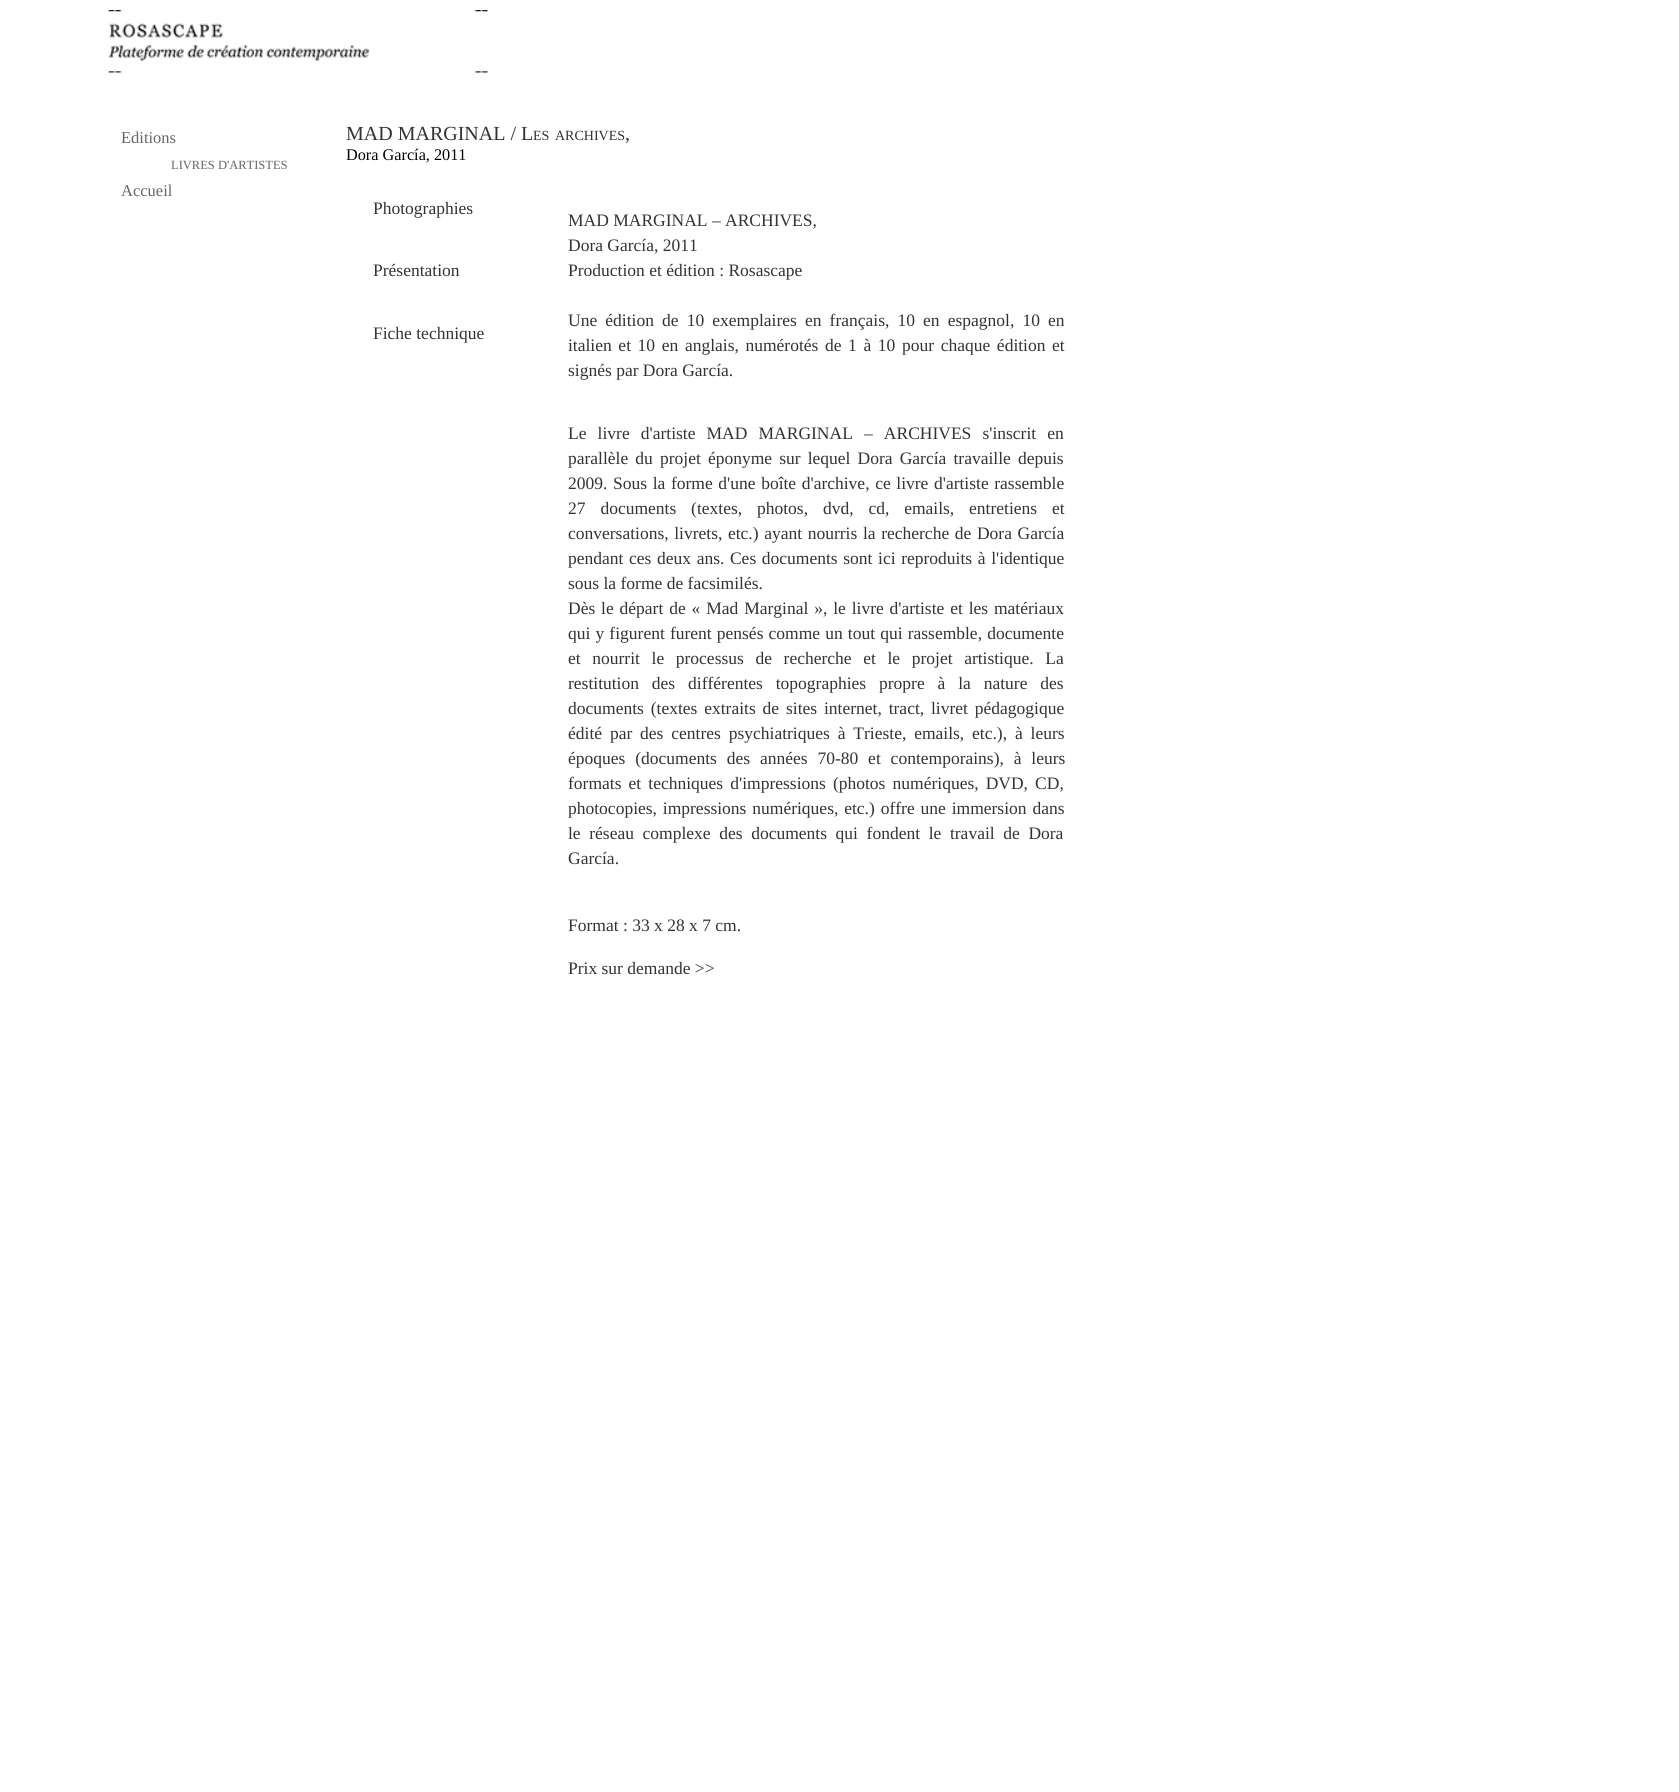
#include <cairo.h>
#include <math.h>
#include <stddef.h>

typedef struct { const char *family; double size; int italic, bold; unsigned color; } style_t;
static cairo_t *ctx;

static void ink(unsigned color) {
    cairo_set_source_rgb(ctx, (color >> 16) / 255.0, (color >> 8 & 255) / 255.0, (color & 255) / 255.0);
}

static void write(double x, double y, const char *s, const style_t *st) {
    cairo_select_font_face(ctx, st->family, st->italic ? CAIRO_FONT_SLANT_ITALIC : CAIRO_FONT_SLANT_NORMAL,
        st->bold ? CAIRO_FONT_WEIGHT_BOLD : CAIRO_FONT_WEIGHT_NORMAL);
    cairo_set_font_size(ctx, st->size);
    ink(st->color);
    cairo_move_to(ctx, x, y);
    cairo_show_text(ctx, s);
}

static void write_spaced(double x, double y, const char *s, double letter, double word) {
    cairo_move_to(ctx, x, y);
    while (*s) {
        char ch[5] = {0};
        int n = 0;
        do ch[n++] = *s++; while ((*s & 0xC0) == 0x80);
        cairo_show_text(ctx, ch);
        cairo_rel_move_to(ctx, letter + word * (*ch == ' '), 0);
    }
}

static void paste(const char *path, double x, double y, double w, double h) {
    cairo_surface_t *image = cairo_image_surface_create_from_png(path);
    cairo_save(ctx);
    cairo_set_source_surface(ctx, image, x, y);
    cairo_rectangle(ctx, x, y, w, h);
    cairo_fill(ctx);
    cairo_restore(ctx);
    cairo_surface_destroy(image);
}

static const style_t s1 = {"Liberation Serif", 16.5, 0, 0, 0x666666};
static const style_t s2 = {"Liberation Serif", 12.5, 0, 0, 0x666666};
static const style_t s3 = {"Liberation Serif", 20, 0, 0, 0x333333};
static const style_t s4 = {"Liberation Serif", 14, 0, 0, 0x333333};
static const style_t s5 = {"Liberation Serif", 16.25, 0, 0, 0x000000};
static const style_t s6 = {"Liberation Serif", 17.5, 0, 0, 0x333333};

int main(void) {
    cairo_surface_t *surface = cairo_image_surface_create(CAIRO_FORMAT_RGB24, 1679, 1792);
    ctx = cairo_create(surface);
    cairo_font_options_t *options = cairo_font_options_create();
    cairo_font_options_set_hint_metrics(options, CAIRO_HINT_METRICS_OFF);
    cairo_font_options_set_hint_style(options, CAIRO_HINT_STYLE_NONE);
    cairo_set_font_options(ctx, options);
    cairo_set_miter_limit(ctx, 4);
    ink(0xffffff);
    cairo_paint(ctx);
    paste("pic1.png", 108, 10, 380, 63);
    write(121, 143, "Editions", &s1);
    write(171, 169, "LIVRES D'ARTISTES", &s2);
    write(121, 196, "Accueil", &s1);
    write(346, 140, "MAD MARGINAL / L", &s3);
    write(533, 140, "ES", &s4);
    write(555, 140, "ARCHIVES", &s4);
    write(625, 140, ",", &s3);
    write(346, 160, "Dora García, 2011", &s5);
    write(373, 214, "Photographies", &s6);
    write(568, 226, "MAD MARGINAL – ARCHIVES,", &s6);
    write(568, 251, "Dora García, 2011", &s6);
    write(568, 276, "Production et édition : Rosascape", &s6);
    write_spaced(568, 326, "Une édition de 10 exemplaires en français, 10 en espagnol, 10 en", 0, 3.75);
    write_spaced(568, 351, "italien et 10 en anglais, numérotés de 1 à 10 pour chaque édition et", 0, 2.25);
    write(568, 376, "signés par Dora García.", &s6);
    write_spaced(568, 439, "Le livre d'artiste MAD MARGINAL – ARCHIVES s'inscrit en", 0, 6.75);
    write_spaced(568, 464, "parallèle du projet éponyme sur lequel Dora García travaille depuis", 0, 2.75);
    write_spaced(568, 489, "2009. Sous la forme d'une boîte d'archive, ce livre d'artiste rassemble", 0, 1.25);
    write_spaced(568, 514, "27 documents (textes, photos, dvd, cd, emails, entretiens et", 0, 10.5);
    write_spaced(568, 539, "conversations, livrets, etc.) ayant nourris la recherche de Dora García", 0, 1.25);
    write_spaced(568, 564, "pendant ces deux ans. Ces documents sont ici reproduits à l'identique", 0, 1.25);
    write(568, 589, "sous la forme de facsimilés.", &s6);
    write_spaced(568, 614, "Dès le départ de « Mad Marginal », le livre d'artiste et les matériaux", 0, 1.5);
    write_spaced(568, 639, "qui y figurent furent pensés comme un tout qui rassemble, documente", 0, 0.75);
    write_spaced(568, 664, "et nourrit le processus de recherche et le projet artistique. La", 0, 7.25);
    write_spaced(568, 689, "restitution des différentes topographies propre à la nature des", 0, 8.5);
    write_spaced(568, 714, "documents (textes extraits de sites internet, tract, livret pédagogique", 0, 2.5);
    write_spaced(568, 739, "édité par des centres psychiatriques à Trieste, emails, etc.), à leurs", 0, 3.5);
    write_spaced(568, 764, "époques (documents des années 70-80 et contemporains), à leurs", 0, 5.5);
    write_spaced(568, 789, "formats et techniques d'impressions (photos numériques, DVD, CD,", 0, 2.75);
    write_spaced(568, 814, "photocopies, impressions numériques, etc.) offre une immersion dans", 0, 1.5);
    write_spaced(568, 839, "le réseau complexe des documents qui fondent le travail de Dora", 0, 4.25);
    write(568, 864, "García.", &s6);
    write(568, 931, "Format : 33 x 28 x 7 cm.", &s6);
    write(568, 974, "Prix sur demande >>", &s6);
    write(373, 276, "Présentation", &s6);
    write(373, 339, "Fiche technique", &s6);
    cairo_surface_write_to_png(surface, "screenshot.png");
    cairo_font_options_destroy(options);
    cairo_destroy(ctx);
    cairo_surface_destroy(surface);
    return 0;
}
